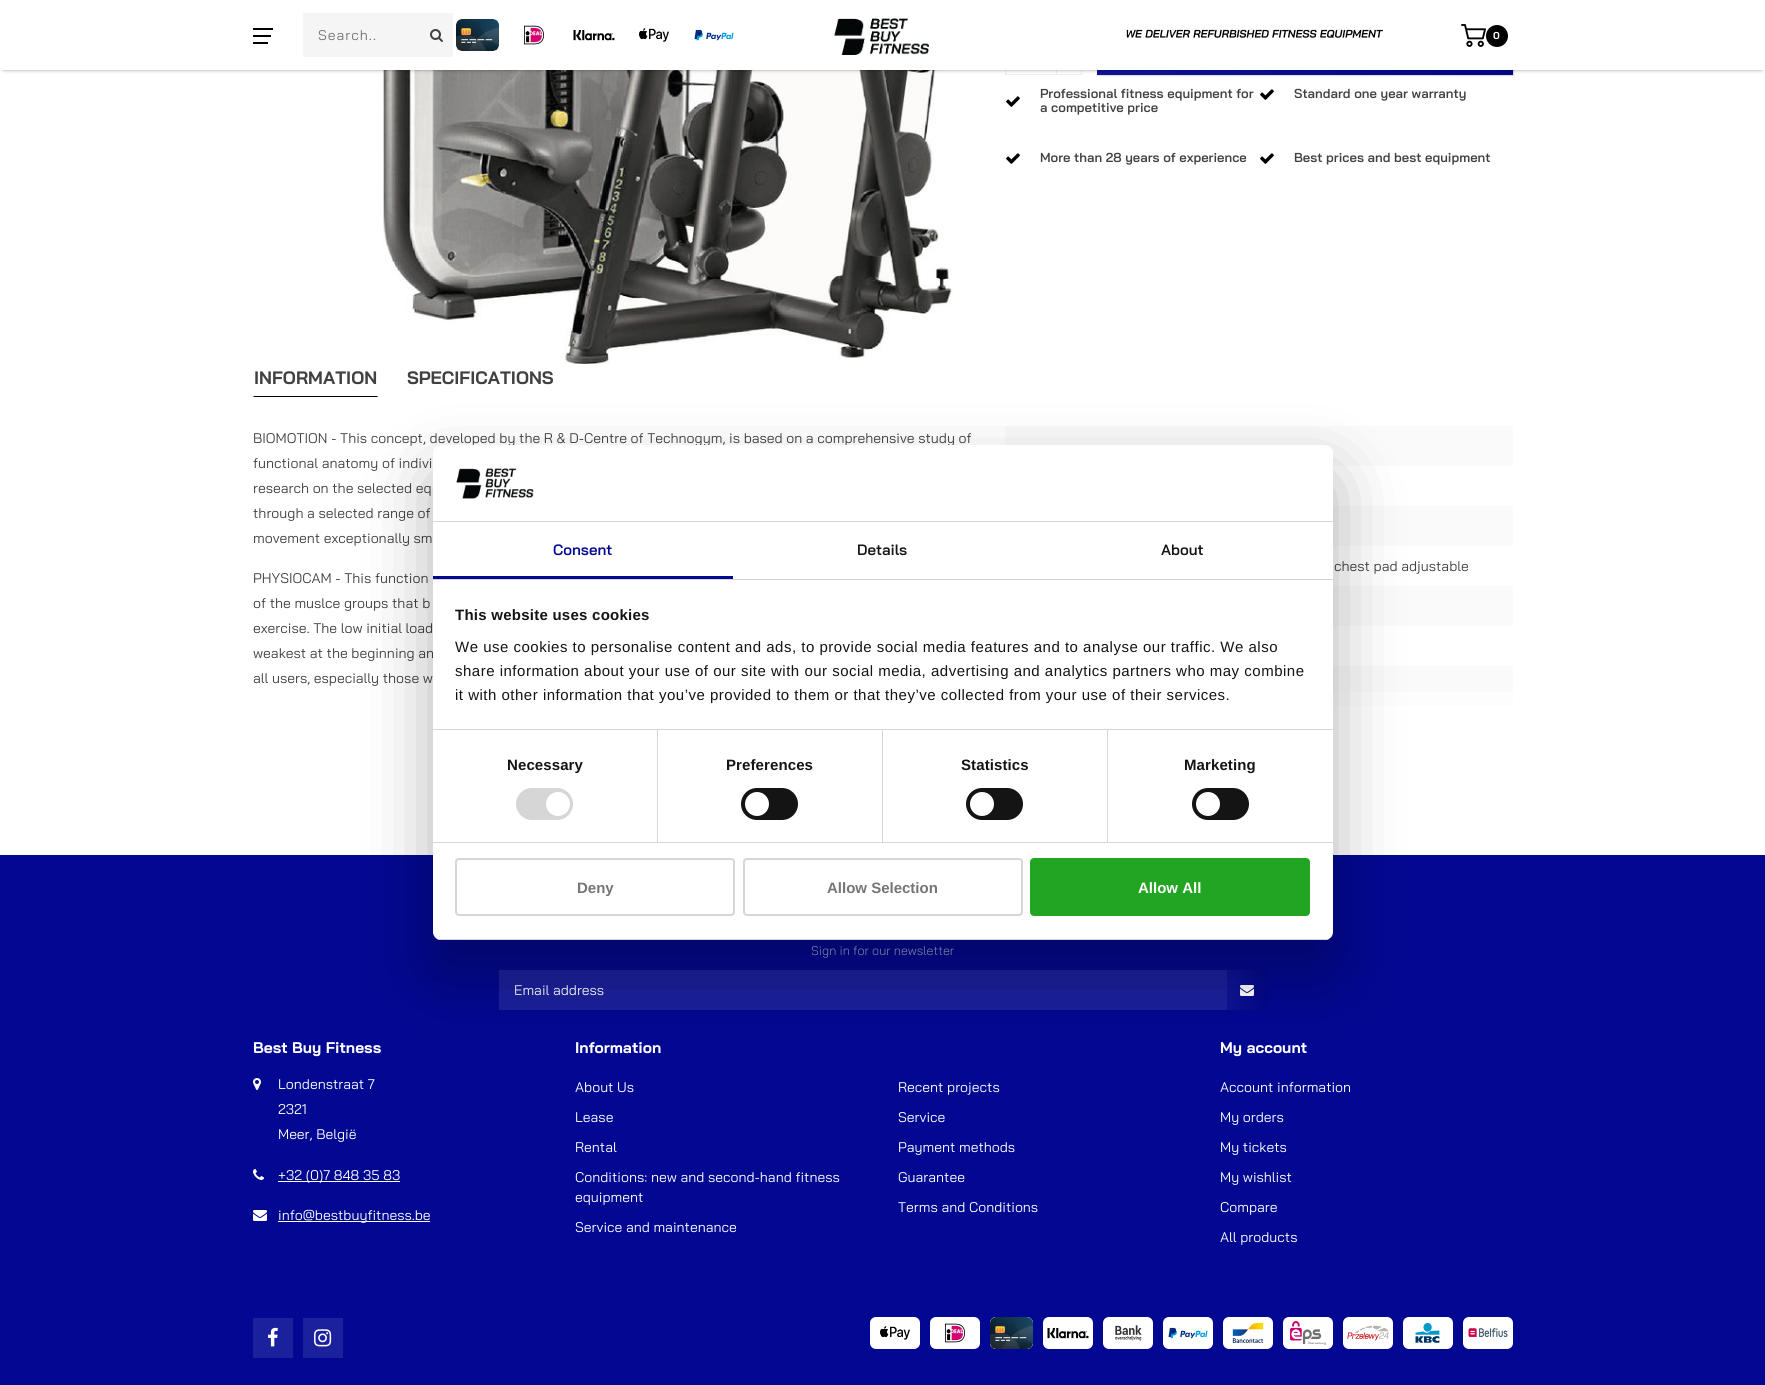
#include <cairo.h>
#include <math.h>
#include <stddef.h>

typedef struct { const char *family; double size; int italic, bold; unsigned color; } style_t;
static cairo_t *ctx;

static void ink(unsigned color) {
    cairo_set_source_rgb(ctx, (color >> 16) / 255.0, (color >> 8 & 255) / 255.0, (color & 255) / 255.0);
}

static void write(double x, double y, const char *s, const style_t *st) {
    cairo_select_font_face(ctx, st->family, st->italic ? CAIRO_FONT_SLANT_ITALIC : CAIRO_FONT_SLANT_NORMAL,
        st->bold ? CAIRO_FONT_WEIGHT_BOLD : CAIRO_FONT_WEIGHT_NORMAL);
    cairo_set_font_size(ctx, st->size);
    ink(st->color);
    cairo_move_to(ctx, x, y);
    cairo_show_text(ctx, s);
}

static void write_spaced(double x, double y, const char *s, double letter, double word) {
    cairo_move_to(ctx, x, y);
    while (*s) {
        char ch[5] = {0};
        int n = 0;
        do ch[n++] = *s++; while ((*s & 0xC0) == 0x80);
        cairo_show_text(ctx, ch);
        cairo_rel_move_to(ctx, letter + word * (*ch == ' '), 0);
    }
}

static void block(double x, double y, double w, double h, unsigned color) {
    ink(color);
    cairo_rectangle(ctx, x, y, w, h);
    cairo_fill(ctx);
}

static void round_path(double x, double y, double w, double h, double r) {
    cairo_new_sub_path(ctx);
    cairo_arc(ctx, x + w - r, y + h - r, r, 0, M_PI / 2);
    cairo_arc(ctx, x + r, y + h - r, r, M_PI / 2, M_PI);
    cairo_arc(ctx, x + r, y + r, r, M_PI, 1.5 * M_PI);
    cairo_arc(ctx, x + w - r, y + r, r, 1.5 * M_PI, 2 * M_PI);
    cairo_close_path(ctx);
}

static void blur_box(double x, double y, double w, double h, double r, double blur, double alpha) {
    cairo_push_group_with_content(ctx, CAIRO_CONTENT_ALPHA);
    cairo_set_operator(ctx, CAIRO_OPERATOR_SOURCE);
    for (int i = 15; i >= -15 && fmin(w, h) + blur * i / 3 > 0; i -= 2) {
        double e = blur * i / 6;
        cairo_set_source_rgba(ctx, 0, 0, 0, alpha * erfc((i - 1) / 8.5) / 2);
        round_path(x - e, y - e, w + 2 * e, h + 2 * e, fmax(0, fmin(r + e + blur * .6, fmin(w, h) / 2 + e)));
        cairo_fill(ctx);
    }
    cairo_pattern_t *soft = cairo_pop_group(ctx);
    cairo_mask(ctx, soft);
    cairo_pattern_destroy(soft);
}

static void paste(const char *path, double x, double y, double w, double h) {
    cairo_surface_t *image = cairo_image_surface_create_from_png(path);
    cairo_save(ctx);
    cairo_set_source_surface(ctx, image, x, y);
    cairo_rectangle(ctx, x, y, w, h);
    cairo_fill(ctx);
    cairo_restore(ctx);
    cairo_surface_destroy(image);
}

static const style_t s1 = {"Bai Jamjuree", 10, 0, 1, 0xffffff};
static const style_t s2 = {"Bai Jamjuree SemiBold", 13, 0, 0, 0x414141};
static const style_t s3 = {"Bai Jamjuree", 18, 0, 1, 0x414141};
static const style_t s4 = {"Bai Jamjuree", 14, 0, 0, 0x414141};
static const style_t s5 = {"Bai Jamjuree Light", 12.6, 0, 0, 0xb3b5de};
static const style_t s6 = {"Bai Jamjuree", 14, 0, 0, 0xffffff};
static const style_t s7 = {"Bai Jamjuree", 15.5, 0, 1, 0xffffff};
static const style_t s8 = {"Bai Jamjuree SemiBold", 15, 0, 0, 0x020891};
static const style_t s9 = {"Bai Jamjuree SemiBold", 15, 0, 0, 0x141414};
static const style_t s10 = {"Liberation Sans", 15, 0, 1, 0x757575};
static const style_t s11 = {"Liberation Sans", 15, 0, 1, 0xffffff};

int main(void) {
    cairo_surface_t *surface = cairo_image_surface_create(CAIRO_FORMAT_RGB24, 1765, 1385);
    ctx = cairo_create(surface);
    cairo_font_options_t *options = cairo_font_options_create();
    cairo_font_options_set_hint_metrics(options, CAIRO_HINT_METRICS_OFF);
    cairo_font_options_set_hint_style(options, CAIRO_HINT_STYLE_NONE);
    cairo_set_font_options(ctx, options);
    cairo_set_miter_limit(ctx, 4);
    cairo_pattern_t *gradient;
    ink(0xffffff);
    cairo_paint(ctx);
    paste("pic10.png", 383, 70, 571, 294);
    cairo_rectangle(ctx, 1005.5, 25.5, 76, 49);
    ink(0xeeeeee);
    cairo_set_line_width(ctx, 1);
    cairo_stroke(ctx);
    block(1056, 70, 1, 4, 0xeeeeee);
    ink(0x000000);
    blur_box(1098, 26, 416, 50, 0, 0.5, 0.15);
    gradient = cairo_pattern_create_linear(1097, 50, 1513, 50);
    cairo_pattern_add_color_stop_rgba(gradient, 0, 0.055, 0.078, 0.588, 1);
    cairo_pattern_add_color_stop_rgba(gradient, 1, 0.004, 0.027, 0.537, 1);
    cairo_set_source(ctx, gradient);
    cairo_pattern_destroy(gradient);
    cairo_rectangle(ctx, 1097, 70, 416, 5);
    cairo_fill(ctx);
    ink(0x000000);
    blur_box(4, 6, 1757, 62, 0, 2.5, 1);
    block(0, 0, 1765, 70, 0xffffff);
    block(253, 28, 20, 2, 0x000000);
    block(253, 35, 18, 2, 0x000000);
    block(253, 42, 15, 2, 0x000000);
    block(303, 13, 150, 44, 0xf5f5f5);
    cairo_select_font_face(ctx, "Bai Jamjuree", CAIRO_FONT_SLANT_NORMAL, CAIRO_FONT_WEIGHT_NORMAL);
    cairo_set_font_size(ctx, 14);
    ink(0x757575);
    write_spaced(318, 40, "Search..", 1, 0);
    paste("pic1.png", 430, 29, 13, 13);
    paste("pic2.png", 456, 19, 43, 32);
    paste("pic3.png", 524, 25, 20, 20);
    paste("pic4.png", 573, 30, 42, 11);
    paste("pic5.png", 639, 28, 30, 14);
    paste("pic6.png", 694, 29, 40, 12);
    paste("pic7.png", 834, 18, 95, 37);
    paste("pic8.png", 1126, 29, 257, 9);
    paste("pic9.png", 1461, 24, 25, 23);
    ink(0x000000);
    cairo_arc(ctx, 1497, 36, 11, 0, 2 * M_PI);
    cairo_fill(ctx);
    write(1493, 39, "0", &s1);
    paste("pic11.png", 1006, 96, 14, 11);
    write(1040, 98, "Professional fitness equipment for", &s2);
    write(1040, 112, "a competitive price", &s2);
    paste("pic11.png", 1260, 89, 14, 11);
    write(1294, 98, "Standard one year warranty", &s2);
    paste("pic11.png", 1006, 153, 14, 11);
    write(1040, 162, "More than 28 years of experience", &s2);
    paste("pic11.png", 1260, 153, 14, 11);
    write(1294, 162, "Best prices and best equipment", &s2);
    ink(0x000000);
    cairo_new_path(ctx);
    cairo_move_to(ctx, 378, 397);
    cairo_line_to(ctx, 253, 397);
    cairo_line_to(ctx, 254, 396);
    cairo_line_to(ctx, 377, 396);
    cairo_close_path(ctx);
    cairo_fill(ctx);
    write(254, 384, "INFORMATION", &s3);
    write(407, 384, "SPECIFICATIONS", &s3);
    write(253, 443, "BIOMOTION - This concept, developed by the R & D-Centre of Technogym, is based on a comprehensive study of", &s4);
    write(253, 468, "functional anatomy of indivi", &s4);
    write(253, 493, "research on the selected eq", &s4);
    write(253, 518, "through a selected range of", &s4);
    write(253, 543, "movement exceptionally sm", &s4);
    write(253, 583, "PHYSIOCAM - This function", &s4);
    write(253, 608, "of the muslce groups that b", &s4);
    write(253, 633, "exercise. The low initial load", &s4);
    write(253, 658, "weakest at the beginning an", &s4);
    write(253, 683, "all users, especially those w", &s4);
    block(1005, 426, 508, 40, 0xfafafa);
    block(1333, 506, 180, 40, 0xfafafa);
    write(1334, 571, "chest pad adjustable", &s4);
    block(1333, 586, 180, 40, 0xfafafa);
    block(1333, 666, 180, 40, 0xfafafa);
    gradient = cairo_pattern_create_linear(1259, 640, 1259, 740);
    cairo_pattern_add_color_stop_rgba(gradient, 0, 1, 1, 1, 0);
    cairo_pattern_add_color_stop_rgba(gradient, 1, 1, 1, 1, 1);
    cairo_set_source(ctx, gradient);
    cairo_pattern_destroy(gradient);
    cairo_rectangle(ctx, 1333, 692, 180, 14);
    cairo_fill(ctx);
    block(0, 855, 1765, 530, 0x020891);
    write(811, 955, "Sign in for our newsletter", &s5);
    block(499, 970, 728, 40, 0x1b209c);
    write(514, 995, "Email address", &s6);
    gradient = cairo_pattern_create_linear(1227, 990, 1267, 990);
    cairo_pattern_add_color_stop_rgba(gradient, 0, 0.055, 0.078, 0.588, 1);
    cairo_pattern_add_color_stop_rgba(gradient, 1, 0.004, 0.027, 0.537, 1);
    cairo_set_source(ctx, gradient);
    cairo_pattern_destroy(gradient);
    cairo_rectangle(ctx, 1227, 970, 40, 40);
    cairo_fill(ctx);
    paste("pic12.png", 1240, 985, 14, 11);
    write(253, 1053, "Best Buy Fitness", &s7);
    paste("pic13.png", 253, 1078, 8, 12);
    write(278, 1089, "Londenstraat 7", &s6);
    write(278, 1114, "2321", &s6);
    write(278, 1139, "Meer, België", &s6);
    paste("pic14.png", 253, 1169, 11, 11);
    block(278, 1181, 122, 1, 0xffffff);
    write(278, 1180, "+32 (0)7 848 35 83", &s6);
    paste("pic15.png", 253, 1210, 14, 11);
    block(278, 1221, 152, 1, 0xffffff);
    write(278, 1220, "info@bestbuyfitness.be", &s6);
    write(575, 1053, "Information", &s7);
    write(575, 1092, "About Us", &s6);
    write(575, 1122, "Lease", &s6);
    write(575, 1152, "Rental", &s6);
    write(575, 1182, "Conditions: new and second-hand fitness", &s6);
    write(575, 1202, "equipment", &s6);
    write(575, 1232, "Service and maintenance", &s6);
    write(898, 1092, "Recent projects", &s6);
    write(898, 1122, "Service", &s6);
    write(898, 1152, "Payment methods", &s6);
    write(898, 1182, "Guarantee", &s6);
    write(898, 1212, "Terms and Conditions", &s6);
    write(1220, 1053, "My account", &s7);
    write(1220, 1092, "Account information", &s6);
    write(1220, 1122, "My orders", &s6);
    write(1220, 1152, "My tickets", &s6);
    write(1220, 1182, "My wishlist", &s6);
    write(1220, 1212, "Compare", &s6);
    write(1220, 1242, "All products", &s6);
    block(253, 1318, 40, 40, 0x1b209c);
    paste("pic16.png", 268, 1327, 10, 20);
    block(303, 1318, 40, 40, 0x1b209c);
    paste("pic17.png", 314, 1329, 18, 18);
    ink(0xffffff);
    round_path(870, 1317, 50, 32, 6);
    cairo_fill(ctx);
    paste("pic18.png", 880, 1326, 30, 14);
    round_path(930, 1317, 50, 32, 6);
    cairo_fill(ctx);
    paste("pic19.png", 945, 1323, 20, 20);
    round_path(990, 1317, 43, 32, 6);
    cairo_fill(ctx);
    paste("pic20.png", 990, 1317, 43, 32);
    round_path(1043, 1317, 50, 32, 6);
    cairo_fill(ctx);
    paste("pic21.png", 1047, 1327, 42, 12);
    round_path(1103, 1317, 50, 32, 6);
    cairo_fill(ctx);
    paste("pic22.png", 1115, 1325, 27, 16);
    round_path(1163, 1317, 50, 32, 6);
    cairo_fill(ctx);
    paste("pic23.png", 1168, 1327, 40, 12);
    round_path(1223, 1317, 50, 32, 6);
    cairo_fill(ctx);
    paste("pic24.png", 1232, 1323, 32, 20);
    round_path(1283, 1317, 50, 32, 6);
    cairo_fill(ctx);
    paste("pic25.png", 1290, 1321, 37, 24);
    round_path(1343, 1317, 50, 32, 6);
    cairo_fill(ctx);
    paste("pic26.png", 1347, 1325, 42, 16);
    round_path(1403, 1317, 50, 32, 6);
    cairo_fill(ctx);
    paste("pic27.png", 1415, 1323, 25, 20);
    round_path(1463, 1317, 50, 32, 6);
    cairo_fill(ctx);
    paste("pic28.png", 1468, 1328, 40, 10);
    ink(0x000000);
    blur_box(433, 477, 900, 495, 8, 34, 0.3);
    ink(0xffffff);
    round_path(433, 445, 900, 495, 8);
    cairo_fill(ctx);
    block(433, 521, 900, 1, 0xd6d6d6);
    paste("pic29.png", 456, 468, 78, 31);
    block(433, 579, 900, 1, 0xd6d6d6);
    block(433, 576, 300, 3, 0x020891);
    write(553, 555, "Consent", &s8);
    write(857, 555, "Details", &s9);
    write(1161, 555, "About", &s9);
    block(433, 729, 900, 1, 0xd6d6d6);
    cairo_select_font_face(ctx, "Liberation Sans", CAIRO_FONT_SLANT_NORMAL, CAIRO_FONT_WEIGHT_BOLD);
    ink(0x141414);
    write_spaced(455, 620, "This website uses cookies", 0.25, 0);
    cairo_select_font_face(ctx, "Liberation Sans", CAIRO_FONT_SLANT_NORMAL, CAIRO_FONT_WEIGHT_NORMAL);
    write_spaced(455, 652, "We use cookies to personalise content and ads, to provide social media features and to analyse our traffic. We also", 0.5, 0);
    write_spaced(455, 676, "share information about your use of our site with our social media, advertising and analytics partners who may combine", 0.5, 0);
    write_spaced(455, 700, "it with other information that you’ve provided to them or that they’ve collected from your use of their services.", 0.5, 0);
    block(433, 842, 900, 1, 0xd6d6d6);
    block(657, 730, 1, 112, 0xd6d6d6);
    cairo_select_font_face(ctx, "Liberation Sans", CAIRO_FONT_SLANT_NORMAL, CAIRO_FONT_WEIGHT_BOLD);
    ink(0x141414);
    write_spaced(507, 770, "Necessary", 0.1, 0);
    ink(0xd6d6d6);
    round_path(516, 788, 57, 32, 16);
    cairo_fill(ctx);
    ink(0xffffff);
    cairo_arc(ctx, 558, 804, 12, 0, 2 * M_PI);
    cairo_fill(ctx);
    block(882, 730, 1, 112, 0xd6d6d6);
    ink(0x141414);
    write_spaced(726, 770, "Preferences", 0.1, 0);
    round_path(741, 788, 57, 32, 16);
    cairo_fill(ctx);
    ink(0xffffff);
    cairo_arc(ctx, 757, 804, 12, 0, 2 * M_PI);
    cairo_fill(ctx);
    block(1107, 730, 1, 112, 0xd6d6d6);
    ink(0x141414);
    write_spaced(961, 770, "Statistics", 0.1, 0);
    round_path(966, 788, 57, 32, 16);
    cairo_fill(ctx);
    ink(0xffffff);
    cairo_arc(ctx, 982, 804, 12, 0, 2 * M_PI);
    cairo_fill(ctx);
    ink(0x141414);
    write_spaced(1184, 770, "Marketing", 0.1, 0);
    round_path(1192, 788, 57, 32, 16);
    cairo_fill(ctx);
    ink(0xffffff);
    cairo_arc(ctx, 1208, 804, 12, 0, 2 * M_PI);
    cairo_fill(ctx);
    cairo_save(ctx);
    round_path(433, 445, 900, 495, 8);
    cairo_clip(ctx);
    block(433, 939, 900, 1, 0xd6d6d6);
    cairo_restore(ctx);
    round_path(456, 859, 278, 56, 3);
    ink(0xd6d6d6);
    cairo_set_line_width(ctx, 2);
    cairo_stroke(ctx);
    write(577, 893, "Deny", &s10);
    round_path(744, 859, 278, 56, 3);
    ink(0xd6d6d6);
    cairo_stroke(ctx);
    write(827, 893, "Allow Selection", &s10);
    ink(0x22a522);
    round_path(1031, 859, 278, 56, 3);
    cairo_fill_preserve(ctx);
    cairo_stroke(ctx);
    write(1138, 893, "Allow All", &s11);
    cairo_surface_write_to_png(surface, "screenshot.png");
    cairo_font_options_destroy(options);
    cairo_destroy(ctx);
    cairo_surface_destroy(surface);
    return 0;
}
